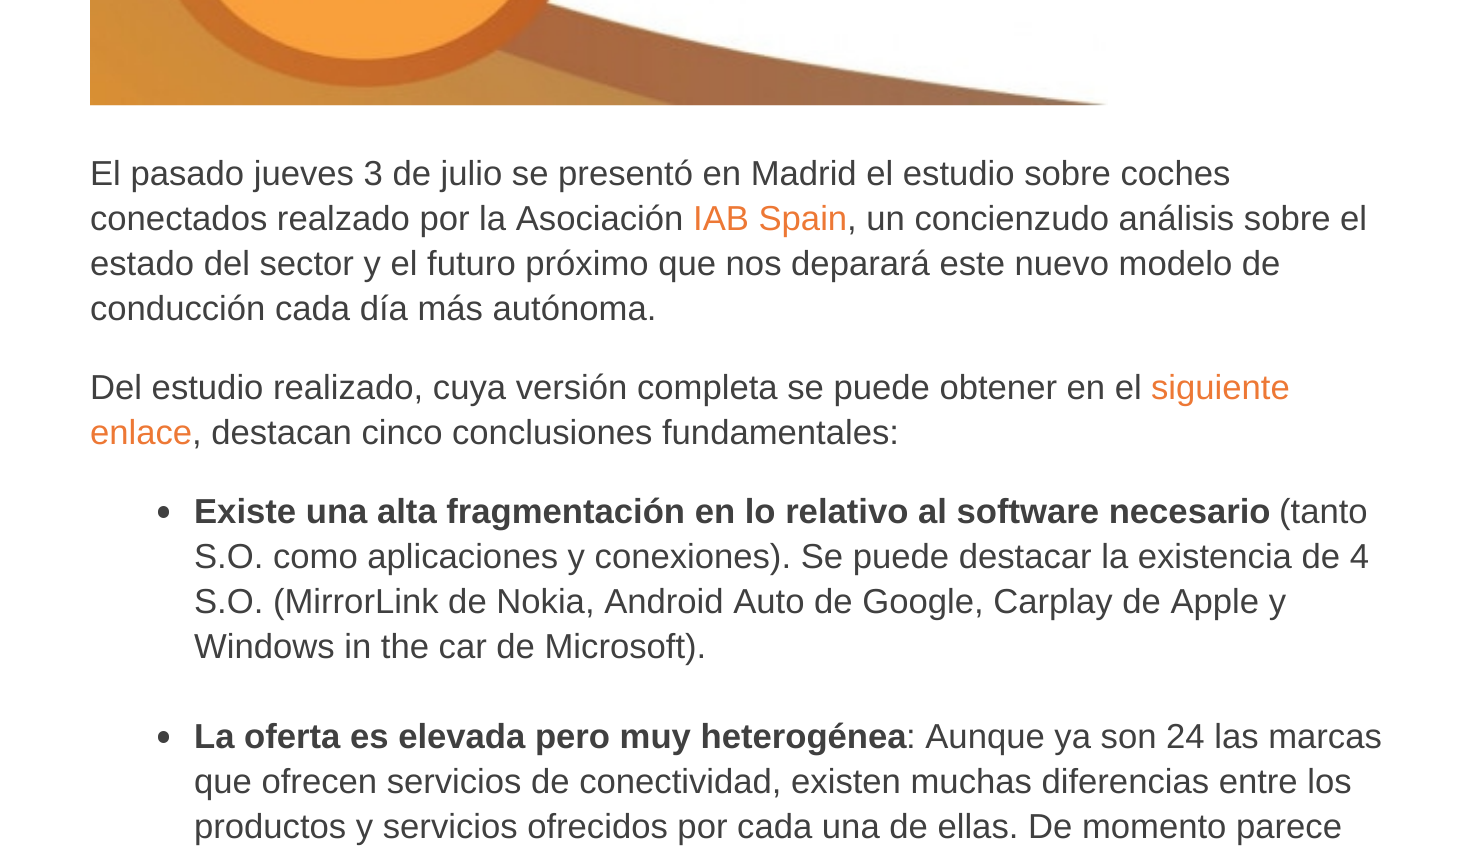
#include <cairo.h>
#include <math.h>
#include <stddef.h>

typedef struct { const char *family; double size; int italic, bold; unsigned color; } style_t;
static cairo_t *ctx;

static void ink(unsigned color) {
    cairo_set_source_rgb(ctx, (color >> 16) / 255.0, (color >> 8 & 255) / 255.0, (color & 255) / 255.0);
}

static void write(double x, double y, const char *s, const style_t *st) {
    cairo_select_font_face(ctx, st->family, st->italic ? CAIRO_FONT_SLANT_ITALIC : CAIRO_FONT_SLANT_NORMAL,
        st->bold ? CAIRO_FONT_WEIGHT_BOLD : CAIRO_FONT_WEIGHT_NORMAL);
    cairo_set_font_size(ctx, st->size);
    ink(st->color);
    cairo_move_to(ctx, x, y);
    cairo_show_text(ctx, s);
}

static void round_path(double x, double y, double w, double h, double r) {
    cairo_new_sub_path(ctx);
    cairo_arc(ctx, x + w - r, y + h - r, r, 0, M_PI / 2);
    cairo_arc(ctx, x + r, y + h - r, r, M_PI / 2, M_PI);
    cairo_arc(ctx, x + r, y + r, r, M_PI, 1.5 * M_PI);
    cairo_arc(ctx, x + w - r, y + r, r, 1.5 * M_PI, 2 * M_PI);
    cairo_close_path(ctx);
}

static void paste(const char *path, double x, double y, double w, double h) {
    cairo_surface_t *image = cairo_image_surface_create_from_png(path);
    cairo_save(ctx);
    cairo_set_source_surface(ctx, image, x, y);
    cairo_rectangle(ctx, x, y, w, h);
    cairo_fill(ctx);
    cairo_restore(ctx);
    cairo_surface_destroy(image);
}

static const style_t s1 = {"Liberation Sans", 34.65, 0, 0, 0x404040};
static const style_t s2 = {"Liberation Sans", 34.65, 0, 0, 0xed7835};
static const style_t s3 = {"Liberation Sans", 34.65, 0, 1, 0x404040};

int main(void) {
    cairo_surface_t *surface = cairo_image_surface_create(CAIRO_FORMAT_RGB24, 1473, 851);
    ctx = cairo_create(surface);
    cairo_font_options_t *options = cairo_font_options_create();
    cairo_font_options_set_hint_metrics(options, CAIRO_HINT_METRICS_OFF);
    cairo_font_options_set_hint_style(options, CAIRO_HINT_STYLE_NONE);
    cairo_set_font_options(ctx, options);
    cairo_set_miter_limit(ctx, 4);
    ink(0xffffff);
    cairo_paint(ctx);
    paste("pic1.png", 90, 0, 1018, 106);
    write(90, 185, "El pasado jueves 3 de julio se presentó en Madrid el estudio sobre coches", &s1);
    write(90, 230, "conectados realzado por la Asociación", &s1);
    write(693, 230, "IAB Spain", &s2);
    write(847, 230, ", un concienzudo análisis sobre el", &s1);
    write(90, 275, "estado del sector y el futuro próximo que nos deparará este nuevo modelo de", &s1);
    write(90, 320, "conducción cada día más autónoma.", &s1);
    write(90, 399, "Del estudio realizado, cuya versión completa se puede obtener en el", &s1);
    write(1151, 399, "siguiente", &s2);
    write(90, 444, "enlace", &s2);
    write(192, 444, ", destacan cinco conclusiones fundamentales:", &s1);
    round_path(158, 506, 11, 12, 5.5);
    cairo_fill(ctx);
    write(194, 523, "Existe una alta fragmentación en lo relativo al software necesario", &s3);
    write(1279, 523, "(tanto", &s1);
    write(194, 568, "S.O. como aplicaciones y conexiones). Se puede destacar la existencia de 4", &s1);
    write(194, 613, "S.O. (MirrorLink de Nokia, Android Auto de Google, Carplay de Apple y", &s1);
    write(194, 658, "Windows in the car de Microsoft).", &s1);
    round_path(158, 731, 11, 12, 5.5);
    cairo_fill(ctx);
    write(194, 748, "La oferta es elevada pero muy heterogénea", &s3);
    write(906, 748, ": Aunque ya son 24 las marcas", &s1);
    write(194, 793, "que ofrecen servicios de conectividad, existen muchas diferencias entre los", &s1);
    write(194, 838, "productos y servicios ofrecidos por cada una de ellas. De momento parece", &s1);
    cairo_surface_write_to_png(surface, "screenshot.png");
    cairo_font_options_destroy(options);
    cairo_destroy(ctx);
    cairo_surface_destroy(surface);
    return 0;
}
